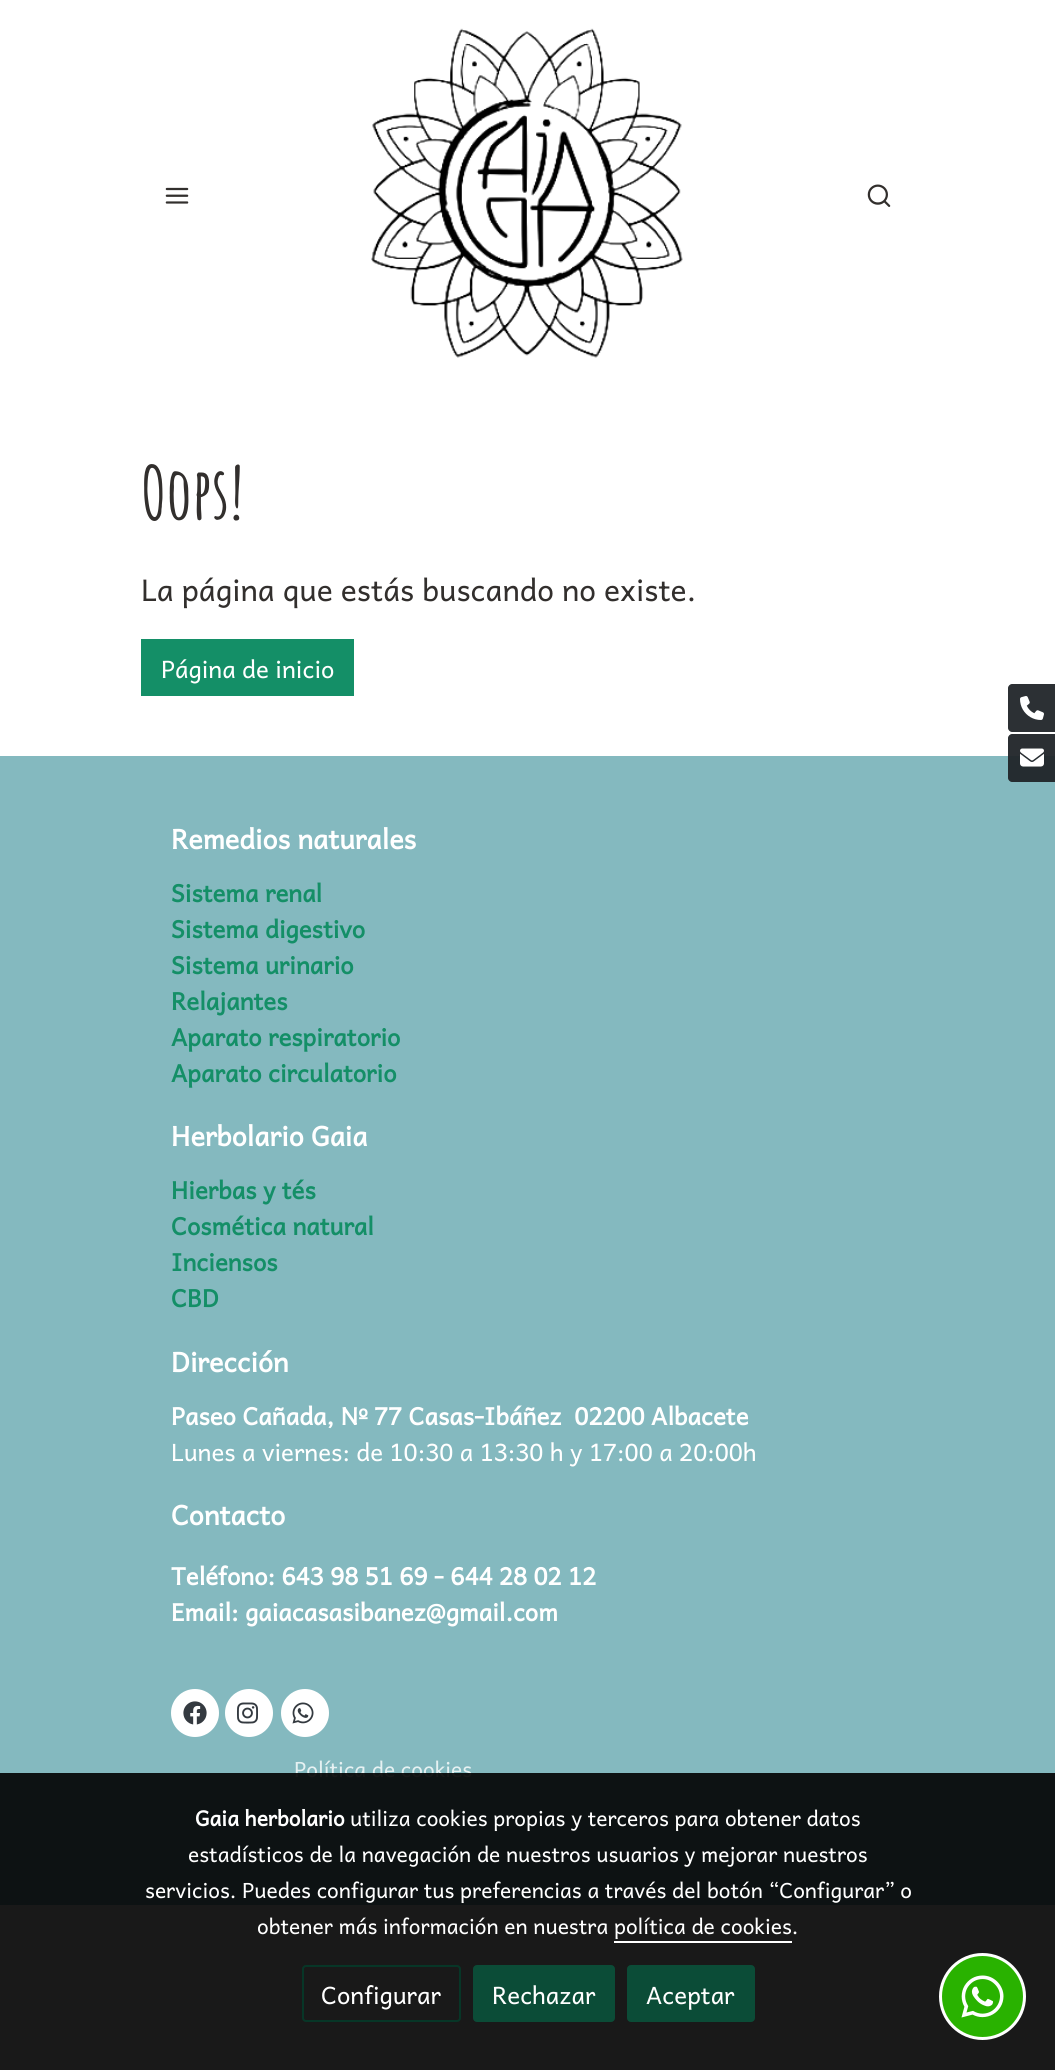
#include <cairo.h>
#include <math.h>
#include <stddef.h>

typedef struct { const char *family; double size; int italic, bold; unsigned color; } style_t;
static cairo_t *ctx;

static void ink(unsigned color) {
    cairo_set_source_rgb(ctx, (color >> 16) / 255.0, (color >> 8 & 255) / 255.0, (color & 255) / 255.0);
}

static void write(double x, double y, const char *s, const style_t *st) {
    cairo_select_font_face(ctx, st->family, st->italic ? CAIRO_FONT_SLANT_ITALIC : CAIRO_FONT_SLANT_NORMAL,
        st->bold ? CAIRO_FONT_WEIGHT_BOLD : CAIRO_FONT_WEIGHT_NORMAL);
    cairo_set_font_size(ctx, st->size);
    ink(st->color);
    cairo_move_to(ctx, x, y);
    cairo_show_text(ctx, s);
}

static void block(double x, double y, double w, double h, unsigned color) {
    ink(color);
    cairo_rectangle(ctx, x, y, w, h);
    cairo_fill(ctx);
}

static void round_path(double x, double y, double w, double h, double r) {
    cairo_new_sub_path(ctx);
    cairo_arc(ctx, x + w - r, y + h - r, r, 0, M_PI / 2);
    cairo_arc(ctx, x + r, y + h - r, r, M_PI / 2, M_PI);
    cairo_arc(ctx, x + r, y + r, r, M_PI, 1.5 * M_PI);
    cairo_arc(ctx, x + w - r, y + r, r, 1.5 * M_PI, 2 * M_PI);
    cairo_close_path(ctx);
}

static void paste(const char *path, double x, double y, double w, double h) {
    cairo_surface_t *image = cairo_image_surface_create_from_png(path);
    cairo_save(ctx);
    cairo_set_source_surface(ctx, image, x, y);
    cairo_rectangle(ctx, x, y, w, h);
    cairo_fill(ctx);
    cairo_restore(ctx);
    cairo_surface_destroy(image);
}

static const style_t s1 = {"Amatic SC", 71, 0, 1, 0x322f2d};
static const style_t s2 = {"Andika", 30, 0, 0, 0x322f2d};
static const style_t s3 = {"Andika", 24, 0, 0, 0xffffff};
static const style_t s4 = {"Andika", 27, 0, 1, 0xffffff};
static const style_t s5 = {"Andika", 24, 0, 1, 0x148f67};
static const style_t s6 = {"Andika", 24, 0, 1, 0xffffff};
static const style_t s7 = {"Andika", 21, 0, 0, 0xe6f1f2};
static const style_t s8 = {"Andika", 21, 0, 1, 0xffffff};
static const style_t s9 = {"Andika", 21, 0, 0, 0xffffff};

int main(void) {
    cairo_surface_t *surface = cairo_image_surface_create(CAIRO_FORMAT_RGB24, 1055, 2070);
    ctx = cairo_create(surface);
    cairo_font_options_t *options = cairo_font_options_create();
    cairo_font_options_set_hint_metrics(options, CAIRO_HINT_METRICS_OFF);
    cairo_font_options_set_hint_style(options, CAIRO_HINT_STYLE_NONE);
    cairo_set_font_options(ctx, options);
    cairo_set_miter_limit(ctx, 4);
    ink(0xffffff);
    cairo_paint(ctx);
    paste("pic1.png", 165, 187, 24, 17);
    paste("pic2.png", 371, 28, 312, 330);
    paste("pic3.png", 867, 184, 24, 23);
    write(141, 519, "Oops!", &s1);
    write(141, 601, "La página que estás buscando no existe.", &s2);
    block(141, 639, 213, 57, 0x148f67);
    write(161, 678, "Página de inicio", &s3);
    block(0, 756, 1055, 1149, 0x84b9bf);
    write(171, 849, "Remedios naturales", &s4);
    write(171, 902, "Sistema renal", &s5);
    write(171, 938, "Sistema digestivo", &s5);
    write(171, 974, "Sistema urinario", &s5);
    write(171, 1010, "Relajantes", &s5);
    write(171, 1046, "Aparato respiratorio", &s5);
    write(171, 1082, "Aparato circulatorio", &s5);
    write(171, 1146, "Herbolario Gaia", &s4);
    write(171, 1199, "Hierbas y tés", &s5);
    write(171, 1235, "Cosmética natural", &s5);
    write(171, 1271, "Inciensos", &s5);
    write(171, 1307, "CBD", &s5);
    write(171, 1372, "Dirección", &s4);
    write(171, 1425, "Paseo Cañada, Nº 77 Casas-Ibáñez  02200 Albacete", &s6);
    write(171, 1461, "Lunes a viernes: de 10:30 a 13:30 h y 17:00 a 20:00h", &s3);
    write(171, 1525, "Contacto", &s4);
    write(171, 1585, "Teléfono: 643 98 51 69 - 644 28 02 12", &s6);
    write(171, 1621, "Email: gaiacasasibanez@gmail.com", &s6);
    cairo_new_path(ctx);
    cairo_arc(ctx, 195, 1713, 24, 0, 2 * M_PI);
    cairo_fill(ctx);
    paste("pic4.png", 183, 1701, 24, 24);
    cairo_arc(ctx, 249, 1713, 24, 0, 2 * M_PI);
    cairo_fill(ctx);
    paste("pic5.png", 237, 1702, 21, 22);
    cairo_arc(ctx, 305, 1713, 24, 0, 2 * M_PI);
    cairo_fill(ctx);
    paste("pic6.png", 292, 1702, 22, 22);
    write(294, 1777, "Política de cookies", &s7);
    ink(0x2c3034);
    cairo_new_path(ctx);
    cairo_move_to(ctx, 1012, 684);
    cairo_line_to(ctx, 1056, 684);
    cairo_line_to(ctx, 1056, 732);
    cairo_line_to(ctx, 1012, 732);
    cairo_curve_to(ctx, 1010, 732, 1008, 730, 1008, 728);
    cairo_line_to(ctx, 1008, 688);
    cairo_curve_to(ctx, 1008, 686, 1010, 684, 1012, 684);
    cairo_close_path(ctx);
    cairo_fill(ctx);
    paste("pic7.png", 1020, 696, 24, 24);
    cairo_set_source_rgba(ctx, 0.129, 0.145, 0.161, 0.95);
    cairo_new_path(ctx);
    cairo_move_to(ctx, 1012, 734);
    cairo_line_to(ctx, 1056, 734);
    cairo_line_to(ctx, 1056, 782);
    cairo_line_to(ctx, 1012, 782);
    cairo_curve_to(ctx, 1010, 782, 1008, 780, 1008, 778);
    cairo_line_to(ctx, 1008, 738);
    cairo_curve_to(ctx, 1008, 736, 1010, 734, 1012, 734);
    cairo_close_path(ctx);
    cairo_fill(ctx);
    paste("pic8.png", 1020, 748, 24, 19);
    cairo_set_source_rgba(ctx, 0, 0, 0, 0.9);
    cairo_rectangle(ctx, 0, 1773, 1055, 297);
    cairo_fill(ctx);
    write(195, 1826, "Gaia herbolario", &s8);
    write(350, 1826, "utiliza cookies propias y terceros para obtener datos", &s9);
    write(188, 1862, "estadísticos de la navegación de nuestros usuarios y mejorar nuestros", &s9);
    write(145, 1898, "servicios. Puedes configurar tus preferencias a través del botón “Configurar” o", &s9);
    write(257, 1934, "obtener más información en nuestra política de cookies.", &s9);
    block(614, 1941, 178, 2, 0xffffff);
    round_path(303, 1966, 157, 55, 3);
    ink(0x073627);
    cairo_stroke(ctx);
    write(321, 2004, "Configurar", &s3);
    ink(0x0b4c37);
    round_path(474, 1966, 140, 55, 3);
    cairo_fill_preserve(ctx);
    cairo_stroke(ctx);
    write(492, 2004, "Rechazar", &s3);
    ink(0x0b4c37);
    round_path(628, 1966, 126, 55, 3);
    cairo_fill_preserve(ctx);
    cairo_stroke(ctx);
    write(646, 2004, "Aceptar", &s3);
    ink(0x29b200);
    cairo_new_path(ctx);
    cairo_arc(ctx, 982.5, 1996.5, 42, 0, 2 * M_PI);
    cairo_fill_preserve(ctx);
    ink(0xffffff);
    cairo_set_line_width(ctx, 3);
    cairo_stroke(ctx);
    paste("pic9.png", 961, 1975, 43, 43);
    cairo_surface_write_to_png(surface, "screenshot.png");
    cairo_font_options_destroy(options);
    cairo_destroy(ctx);
    cairo_surface_destroy(surface);
    return 0;
}
